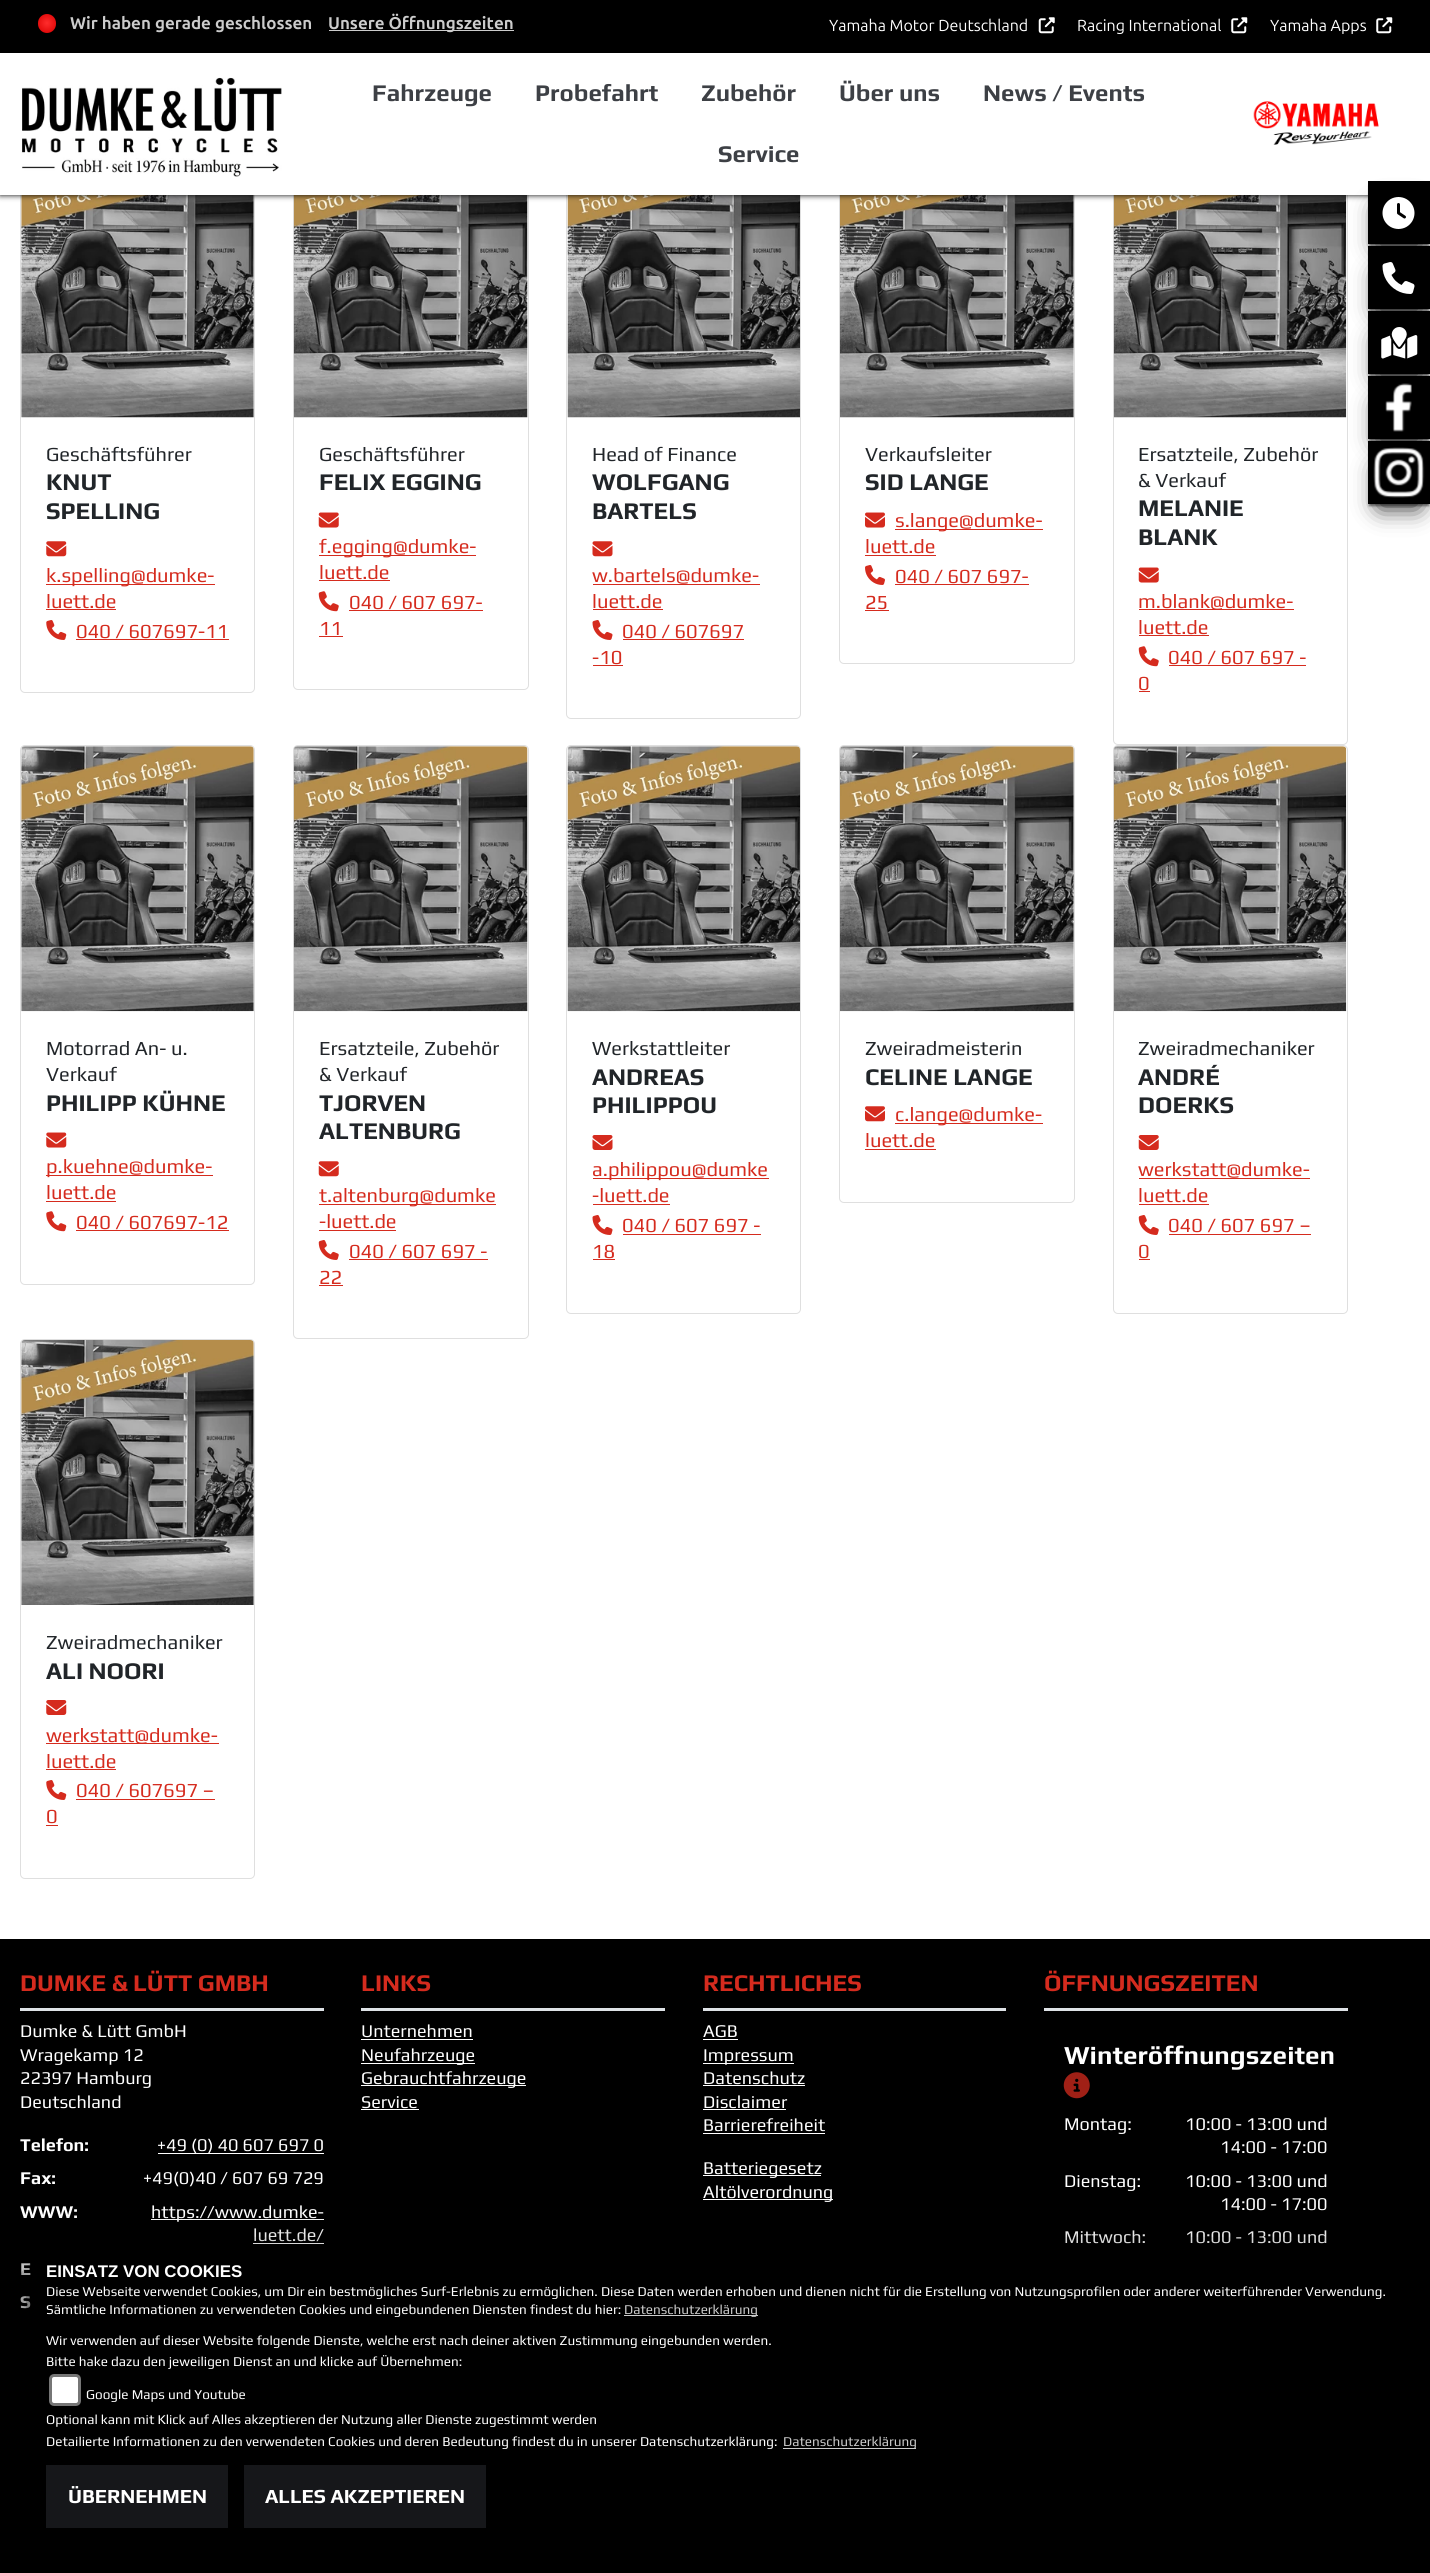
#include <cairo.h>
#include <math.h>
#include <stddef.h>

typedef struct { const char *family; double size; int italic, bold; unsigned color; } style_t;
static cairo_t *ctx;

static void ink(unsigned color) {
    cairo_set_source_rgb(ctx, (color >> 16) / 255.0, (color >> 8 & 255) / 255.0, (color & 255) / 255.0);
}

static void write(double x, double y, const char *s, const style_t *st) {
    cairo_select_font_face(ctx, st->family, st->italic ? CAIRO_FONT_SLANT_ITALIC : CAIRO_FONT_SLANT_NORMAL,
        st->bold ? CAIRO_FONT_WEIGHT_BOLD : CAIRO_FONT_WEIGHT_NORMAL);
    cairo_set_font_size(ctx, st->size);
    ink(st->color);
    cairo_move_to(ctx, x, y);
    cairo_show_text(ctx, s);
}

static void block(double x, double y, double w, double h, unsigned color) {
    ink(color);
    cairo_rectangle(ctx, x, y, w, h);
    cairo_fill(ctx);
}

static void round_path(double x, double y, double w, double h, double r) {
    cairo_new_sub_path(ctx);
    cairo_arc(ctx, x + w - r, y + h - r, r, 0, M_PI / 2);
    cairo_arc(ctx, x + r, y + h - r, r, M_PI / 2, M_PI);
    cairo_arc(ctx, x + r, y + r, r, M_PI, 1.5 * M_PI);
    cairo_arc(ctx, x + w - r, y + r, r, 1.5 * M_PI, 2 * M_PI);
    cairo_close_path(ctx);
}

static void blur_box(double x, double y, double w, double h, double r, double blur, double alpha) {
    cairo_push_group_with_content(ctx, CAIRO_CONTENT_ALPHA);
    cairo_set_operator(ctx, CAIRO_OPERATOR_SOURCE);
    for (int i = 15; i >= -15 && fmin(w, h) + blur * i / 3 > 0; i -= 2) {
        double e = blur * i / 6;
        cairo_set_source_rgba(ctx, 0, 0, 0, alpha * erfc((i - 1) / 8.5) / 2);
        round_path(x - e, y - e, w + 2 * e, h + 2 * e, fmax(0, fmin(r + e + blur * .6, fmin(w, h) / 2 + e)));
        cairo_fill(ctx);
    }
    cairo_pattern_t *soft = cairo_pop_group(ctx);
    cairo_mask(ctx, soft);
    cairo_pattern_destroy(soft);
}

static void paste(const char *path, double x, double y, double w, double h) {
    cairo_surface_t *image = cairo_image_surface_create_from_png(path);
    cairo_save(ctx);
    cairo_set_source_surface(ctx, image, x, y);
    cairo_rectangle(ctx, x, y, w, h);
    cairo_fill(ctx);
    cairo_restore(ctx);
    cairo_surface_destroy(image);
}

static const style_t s1 = {"Ubuntu", 17, 0, 1, 0xcccccc};
static const style_t s2 = {"Ubuntu", 16, 0, 0, 0xffffff};
static const style_t s3 = {"Play", 24, 0, 1, 0x3d4045};
static const style_t s4 = {"Play", 20, 0, 0, 0x212529};
static const style_t s5 = {"Play", 24, 0, 1, 0x212529};
static const style_t s6 = {"Play", 20, 0, 0, 0xd52b1e};
static const style_t s7 = {"Play", 24, 0, 1, 0xd52b1e};
static const style_t s8 = {"Play", 18, 0, 0, 0xffffff};
static const style_t s9 = {"Play", 18, 0, 1, 0xffffff};
static const style_t s10 = {"Play", 26, 0, 1, 0xffffff};
static const style_t s11 = {"Liberation Sans", 16.9, 0, 1, 0xffffff};
static const style_t s12 = {"Play", 13.5, 0, 0, 0xffffff};
static const style_t s13 = {"Play", 13.5, 0, 0, 0xcccccc};
static const style_t s14 = {"Play", 20, 0, 1, 0xffffff};

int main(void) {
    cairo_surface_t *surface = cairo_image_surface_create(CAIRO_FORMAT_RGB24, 1430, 2573);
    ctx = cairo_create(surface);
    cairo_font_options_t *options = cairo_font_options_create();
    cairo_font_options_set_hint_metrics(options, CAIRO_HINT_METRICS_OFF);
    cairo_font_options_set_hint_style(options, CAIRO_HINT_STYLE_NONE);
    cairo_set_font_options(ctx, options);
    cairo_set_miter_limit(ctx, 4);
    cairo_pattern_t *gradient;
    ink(0xffffff);
    cairo_paint(ctx);
    round_path(20.5, 151.5, 234, 541, 4.5);
    ink(0xdfdfdf);
    cairo_set_line_width(ctx, 1);
    cairo_stroke(ctx);
    paste("pic10.png", 21, 195, 233, 223);
    round_path(293.5, 151.5, 235, 538, 4.5);
    cairo_stroke(ctx);
    paste("pic13.png", 293, 195, 235, 223);
    round_path(566.5, 151.5, 234, 567, 4.5);
    cairo_stroke(ctx);
    paste("pic16.png", 567, 195, 233, 223);
    round_path(839.5, 151.5, 235, 512, 4.5);
    cairo_stroke(ctx);
    paste("pic19.png", 840, 195, 234, 223);
    round_path(1113.5, 151.5, 234, 593, 4.5);
    cairo_stroke(ctx);
    paste("pic22.png", 1113, 195, 234, 223);
    ink(0x000000);
    blur_box(0, 0, 1430, 195, 0, 3, 1);
    block(0, 0, 1430, 53, 0x000000);
    gradient = cairo_pattern_create_radial(47, 23, 0, 47, 23, 13);
    cairo_pattern_add_color_stop_rgba(gradient, 0, 1, 0.176, 0.176, 1);
    cairo_pattern_add_color_stop_rgba(gradient, 1, 0.851, 0, 0, 1);
    cairo_set_source(ctx, gradient);
    cairo_pattern_destroy(gradient);
    round_path(38, 14, 18, 19, 9);
    cairo_fill(ctx);
    write(70, 29, "Wir haben gerade geschlossen", &s1);
    block(329, 30, 185, 1, 0xcccccc);
    write(328, 29, "Unsere Öffnungszeiten", &s1);
    write(829, 31, "Yamaha Motor Deutschland", &s2);
    paste("pic1.png", 1038, 17, 17, 17);
    write(1077, 31, "Racing International", &s2);
    paste("pic2.png", 1231, 17, 17, 17);
    write(1270, 31, "Yamaha Apps", &s2);
    paste("pic2.png", 1376, 17, 17, 17);
    block(0, 53, 1430, 142, 0xffffff);
    paste("pic3.png", 21, 77, 261, 100);
    write(372, 101, "Fahrzeuge", &s3);
    write(535, 101, "Probefahrt", &s3);
    write(701, 101, "Zubehör", &s3);
    write(839, 101, "Über uns", &s3);
    write(983, 101, "News / Events", &s3);
    write(718, 162, "Service", &s3);
    paste("pic4.png", 1253, 101, 126, 44);
    ink(0x000000);
    blur_box(1380, 209, 38, 37, 0, 12.5, 1);
    blur_box(1369, 186, 60, 60, 0, 1, 0.5);
    block(1368, 181, 62, 63, 0x000000);
    paste("pic5.png", 1382, 197, 33, 32);
    ink(0x000000);
    blur_box(1380, 274, 38, 37, 0, 12.5, 1);
    blur_box(1369, 251, 60, 60, 0, 1, 0.5);
    block(1368, 246, 62, 63, 0x000000);
    paste("pic6.png", 1382, 262, 33, 32);
    ink(0x000000);
    blur_box(1380, 339, 38, 37, 0, 12.5, 1);
    blur_box(1369, 316, 60, 60, 0, 1, 0.5);
    block(1368, 311, 62, 63, 0x000000);
    paste("pic7.png", 1381, 327, 37, 32);
    ink(0x000000);
    blur_box(1380, 404, 38, 37, 0, 12.5, 1);
    blur_box(1369, 381, 60, 60, 0, 1, 0.5);
    block(1368, 376, 62, 63, 0x000000);
    paste("pic8.png", 1385, 383, 27, 49);
    ink(0x000000);
    blur_box(1380, 469, 38, 37, 0, 12.5, 1);
    blur_box(1369, 446, 60, 60, 0, 1, 0.5);
    block(1368, 441, 62, 63, 0x000000);
    paste("pic9.png", 1373, 447, 52, 51);
    write(46, 461, "Geschäftsführer", &s4);
    write(46, 490, "KNUT", &s5);
    write(46, 519, "SPELLING", &s5);
    paste("pic11.png", 46, 541, 21, 16);
    block(46, 584, 169, 1, 0xd52b1e);
    write(46, 582, "k.spelling@dumke-", &s6);
    write(46, 608, "luett.de", &s6);
    block(46, 609, 70, 1, 0xd52b1e);
    paste("pic12.png", 46, 620, 21, 20);
    write(76, 638, "040 / 607697-11", &s6);
    block(76, 639, 153, 1, 0xd52b1e);
    write(319, 461, "Geschäftsführer", &s4);
    write(319, 490, "FELIX EGGING", &s5);
    paste("pic14.png", 318, 512, 21, 16);
    block(319, 555, 157, 1, 0xd52b1e);
    write(319, 553, "f.egging@dumke-", &s6);
    write(319, 579, "luett.de", &s6);
    block(319, 580, 71, 1, 0xd52b1e);
    paste("pic15.png", 318, 591, 21, 21);
    write(349, 609, "040 / 607 697-", &s6);
    block(349, 610, 134, 1, 0xd52b1e);
    write(319, 635, "11", &s6);
    block(319, 636, 24, 1, 0xd52b1e);
    write(592, 461, "Head of Finance", &s4);
    write(592, 490, "WOLFGANG", &s5);
    write(592, 519, "BARTELS", &s5);
    paste("pic17.png", 592, 541, 21, 16);
    write(592, 582, "w.bartels@dumke-", &s6);
    block(593, 584, 167, 1, 0xd52b1e);
    write(592, 608, "luett.de", &s6);
    block(593, 609, 70, 1, 0xd52b1e);
    paste("pic18.png", 592, 620, 21, 20);
    write(622, 638, "040 / 607697", &s6);
    block(623, 639, 121, 1, 0xd52b1e);
    write(592, 664, "-10", &s6);
    block(593, 665, 30, 1, 0xd52b1e);
    write(865, 461, "Verkaufsleiter", &s4);
    write(865, 490, "SID LANGE", &s5);
    paste("pic20.png", 865, 512, 20, 16);
    block(895, 529, 148, 1, 0xd52b1e);
    write(895, 527, "s.lange@dumke-", &s6);
    write(865, 553, "luett.de", &s6);
    block(865, 555, 71, 1, 0xd52b1e);
    paste("pic21.png", 865, 565, 20, 20);
    write(895, 583, "040 / 607 697-", &s6);
    block(895, 584, 134, 1, 0xd52b1e);
    write(865, 609, "25", &s6);
    block(865, 610, 24, 1, 0xd52b1e);
    write(1138, 461, "Ersatzteile, Zubehör", &s4);
    write(1138, 487, "& Verkauf", &s4);
    write(1138, 516, "MELANIE", &s5);
    write(1138, 545, "BLANK", &s5);
    paste("pic14.png", 1138, 567, 21, 16);
    block(1139, 609, 155, 1, 0xd52b1e);
    write(1138, 608, "m.blank@dumke-", &s6);
    write(1138, 634, "luett.de", &s6);
    block(1139, 635, 70, 1, 0xd52b1e);
    paste("pic15.png", 1138, 646, 21, 21);
    write(1168, 664, "040 / 607 697 -", &s6);
    block(1169, 665, 137, 1, 0xd52b1e);
    write(1138, 690, "0", &s6);
    block(1139, 691, 11, 1, 0xd52b1e);
    round_path(20.5, 745.5, 234, 539, 4.5);
    ink(0xdfdfdf);
    cairo_stroke(ctx);
    paste("pic23.png", 21, 746, 233, 266);
    write(46, 1055, "Motorrad An- u.", &s4);
    write(46, 1081, "Verkauf", &s4);
    write(46, 1111, "PHILIPP KÜHNE", &s5);
    paste("pic24.png", 46, 1132, 21, 16);
    block(46, 1175, 167, 1, 0xd52b1e);
    write(46, 1173, "p.kuehne@dumke-", &s6);
    write(46, 1199, "luett.de", &s6);
    block(46, 1201, 70, 1, 0xd52b1e);
    paste("pic25.png", 46, 1211, 21, 21);
    write(76, 1229, "040 / 607697-12", &s6);
    block(76, 1230, 153, 1, 0xd52b1e);
    round_path(293.5, 745.5, 235, 593, 4.5);
    ink(0xdfdfdf);
    cairo_stroke(ctx);
    paste("pic26.png", 293, 746, 235, 266);
    write(319, 1055, "Ersatzteile, Zubehör", &s4);
    write(319, 1081, "& Verkauf", &s4);
    write(319, 1111, "TJORVEN", &s5);
    write(319, 1139, "ALTENBURG", &s5);
    paste("pic27.png", 318, 1161, 21, 16);
    block(319, 1204, 177, 1, 0xd52b1e);
    write(319, 1202, "t.altenburg@dumke", &s6);
    write(319, 1228, "-luett.de", &s6);
    block(319, 1230, 77, 1, 0xd52b1e);
    paste("pic28.png", 318, 1240, 21, 20);
    write(349, 1258, "040 / 607 697 -", &s6);
    block(349, 1259, 139, 1, 0xd52b1e);
    write(319, 1284, "22", &s6);
    block(319, 1285, 24, 1, 0xd52b1e);
    round_path(566.5, 745.5, 234, 568, 4.5);
    ink(0xdfdfdf);
    cairo_stroke(ctx);
    paste("pic29.png", 567, 746, 233, 266);
    write(592, 1055, "Werkstattleiter", &s4);
    write(592, 1085, "ANDREAS", &s5);
    write(592, 1113, "PHILIPPOU", &s5);
    paste("pic30.png", 592, 1135, 21, 15);
    block(593, 1178, 176, 1, 0xd52b1e);
    write(592, 1176, "a.philippou@dumke", &s6);
    write(592, 1202, "-luett.de", &s6);
    block(593, 1204, 77, 1, 0xd52b1e);
    paste("pic18.png", 592, 1215, 21, 20);
    write(622, 1232, "040 / 607 697 -", &s6);
    block(623, 1234, 138, 1, 0xd52b1e);
    write(592, 1258, "18", &s6);
    block(593, 1259, 22, 1, 0xd52b1e);
    round_path(839.5, 745.5, 235, 457, 4.5);
    ink(0xdfdfdf);
    cairo_stroke(ctx);
    paste("pic31.png", 840, 746, 234, 266);
    write(865, 1055, "Zweiradmeisterin", &s4);
    write(865, 1085, "CELINE LANGE", &s5);
    paste("pic32.png", 865, 1106, 20, 16);
    block(895, 1123, 148, 1, 0xd52b1e);
    write(895, 1121, "c.lange@dumke-", &s6);
    write(865, 1147, "luett.de", &s6);
    block(865, 1149, 71, 1, 0xd52b1e);
    round_path(1113.5, 745.5, 234, 568, 4.5);
    ink(0xdfdfdf);
    cairo_stroke(ctx);
    paste("pic33.png", 1113, 746, 234, 266);
    write(1138, 1055, "Zweiradmechaniker", &s4);
    write(1138, 1085, "ANDRÉ", &s5);
    write(1138, 1113, "DOERKS", &s5);
    paste("pic34.png", 1138, 1135, 21, 15);
    write(1138, 1176, "werkstatt@dumke-", &s6);
    block(1139, 1178, 171, 1, 0xd52b1e);
    write(1138, 1202, "luett.de", &s6);
    block(1139, 1204, 70, 1, 0xd52b1e);
    paste("pic28.png", 1138, 1215, 21, 20);
    write(1168, 1232, "040 / 607 697 –", &s6);
    block(1169, 1234, 142, 1, 0xd52b1e);
    write(1138, 1258, "0", &s6);
    block(1139, 1259, 11, 1, 0xd52b1e);
    round_path(20.5, 1339.5, 234, 539, 4.5);
    ink(0xdfdfdf);
    cairo_stroke(ctx);
    paste("pic35.png", 21, 1340, 233, 265);
    write(46, 1649, "Zweiradmechaniker", &s4);
    write(46, 1679, "ALI NOORI", &s5);
    paste("pic36.png", 46, 1700, 21, 15);
    block(46, 1743, 173, 1, 0xd52b1e);
    write(46, 1742, "werkstatt@dumke-", &s6);
    write(46, 1768, "luett.de", &s6);
    block(46, 1769, 70, 1, 0xd52b1e);
    paste("pic12.png", 46, 1780, 21, 20);
    write(76, 1797, "040 / 607697 –", &s6);
    block(76, 1799, 139, 1, 0xd52b1e);
    write(46, 1823, "0", &s6);
    block(46, 1825, 12, 1, 0xd52b1e);
    block(0, 1939, 1430, 634, 0x000000);
    write(20, 1991, "DUMKE & LÜTT GMBH", &s7);
    block(20, 2008, 304, 3, 0xdee2e6);
    write(20, 2037, "Dumke & Lütt GmbH", &s8);
    write(20, 2061, "Wragekamp 12", &s8);
    write(20, 2084, "22397 Hamburg", &s8);
    write(20, 2108, "Deutschland", &s8);
    write(20, 2151, "Telefon:", &s9);
    block(158, 2153, 166, 1, 0xffffff);
    write(157, 2151, "+49 (0) 40 607 697 0", &s8);
    write(20, 2184, "Fax:", &s9);
    write(143, 2184, "+49(0)40 / 607 69 729", &s8);
    write(20, 2218, "WWW:", &s9);
    block(151, 2219, 173, 1, 0xffffff);
    write(151, 2218, "https://www.dumke-", &s8);
    write(253, 2241, "luett.de/", &s8);
    block(253, 2243, 71, 1, 0xffffff);
    write(20, 2275, "E", &s9);
    write(20, 2308, "S", &s9);
    write(361, 1991, "LINKS", &s7);
    block(361, 2008, 304, 3, 0xdee2e6);
    write(361, 2037, "Unternehmen", &s8);
    block(361, 2039, 112, 1, 0xffffff);
    block(361, 2063, 114, 1, 0xffffff);
    write(361, 2061, "Neufahrzeuge", &s8);
    block(361, 2085, 165, 1, 0xffffff);
    write(361, 2084, "Gebrauchtfahrzeuge", &s8);
    write(361, 2108, "Service", &s8);
    block(361, 2109, 58, 1, 0xffffff);
    write(703, 1991, "RECHTLICHES", &s7);
    block(703, 2008, 303, 3, 0xdee2e6);
    write(703, 2037, "AGB", &s8);
    block(703, 2039, 35, 1, 0xffffff);
    block(703, 2063, 91, 1, 0xffffff);
    write(703, 2061, "Impressum", &s8);
    write(703, 2084, "Datenschutz", &s8);
    block(703, 2085, 102, 1, 0xffffff);
    write(703, 2108, "Disclaimer", &s8);
    block(703, 2109, 83, 1, 0xffffff);
    write(703, 2131, "Barrierefreiheit", &s8);
    block(703, 2133, 122, 1, 0xffffff);
    block(703, 2175, 118, 1, 0xffffff);
    write(703, 2174, "Batteriegesetz", &s8);
    block(703, 2199, 130, 1, 0xffffff);
    write(703, 2198, "Altölverordnung", &s8);
    write(1044, 1991, "ÖFFNUNGSZEITEN", &s7);
    block(1044, 2008, 304, 3, 0xdee2e6);
    write(1064, 2064, "Winteröffnungszeiten", &s10);
    paste("pic37.png", 1063, 2072, 27, 27);
    write(1064, 2130, "Montag:", &s8);
    write(1185, 2130, "10:00 - 13:00 und", &s8);
    write(1220, 2153, "14:00 - 17:00", &s8);
    write(1064, 2187, "Dienstag:", &s8);
    write(1185, 2187, "10:00 - 13:00 und", &s8);
    write(1220, 2210, "14:00 - 17:00", &s8);
    write(1064, 2243, "Mittwoch:", &s8);
    write(1185, 2243, "10:00 - 13:00 und", &s8);
    cairo_save(ctx);
    cairo_rectangle(ctx, 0, 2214, 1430, 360);
    cairo_clip(ctx);
    ink(0x000000);
    blur_box(31, 2273, 1368, 297, 0, 31, 1);
    cairo_restore(ctx);
    write(46, 2277, "EINSATZ VON COOKIES", &s11);
    write(46, 2296, "Diese Webseite verwendet Cookies, um Dir ein bestmögliches Surf-Erlebnis zu ermöglichen. Diese Daten werden erhoben und dienen nicht für die Erstellung von Nutzungsprofilen oder anderer weiterführender Verwendung.", &s12);
    write(46, 2314, "Sämtliche Informationen zu verwendeten Cookies und eingebundenen Diensten findest du hier:", &s12);
    block(624, 2315, 134, 1, 0xcccccc);
    write(624, 2314, "Datenschutzerklärung", &s13);
    write(46, 2345, "Wir verwenden auf dieser Website folgende Dienste, welche erst nach deiner aktiven Zustimmung eingebunden werden.", &s12);
    write(46, 2366, "Bitte hake dazu den jeweiligen Dienst an und klicke auf Übernehmen:", &s12);
    round_path(50.5, 2375.5, 29, 29, 3.5);
    cairo_fill_preserve(ctx);
    ink(0x767676);
    cairo_set_line_width(ctx, 3);
    cairo_stroke(ctx);
    write(86, 2399, "Google Maps und Youtube", &s12);
    write(46, 2424, "Optional kann mit Klick auf Alles akzeptieren der Nutzung aller Dienste zugestimmt werden", &s12);
    write(46, 2446, "Detailierte Informationen zu den verwendeten Cookies und deren Bedeutung findest du in unserer Datenschutzerklärung:", &s12);
    block(783, 2448, 133, 1, 0xcccccc);
    write(783, 2446, "Datenschutzerklärung", &s13);
    block(46, 2465, 182, 63, 0x16171a);
    write(68, 2503, "ÜBERNEHMEN", &s14);
    block(244, 2465, 242, 63, 0x16171a);
    write(265, 2503, "ALLES AKZEPTIEREN", &s14);
    cairo_surface_write_to_png(surface, "screenshot.png");
    cairo_font_options_destroy(options);
    cairo_destroy(ctx);
    cairo_surface_destroy(surface);
    return 0;
}
